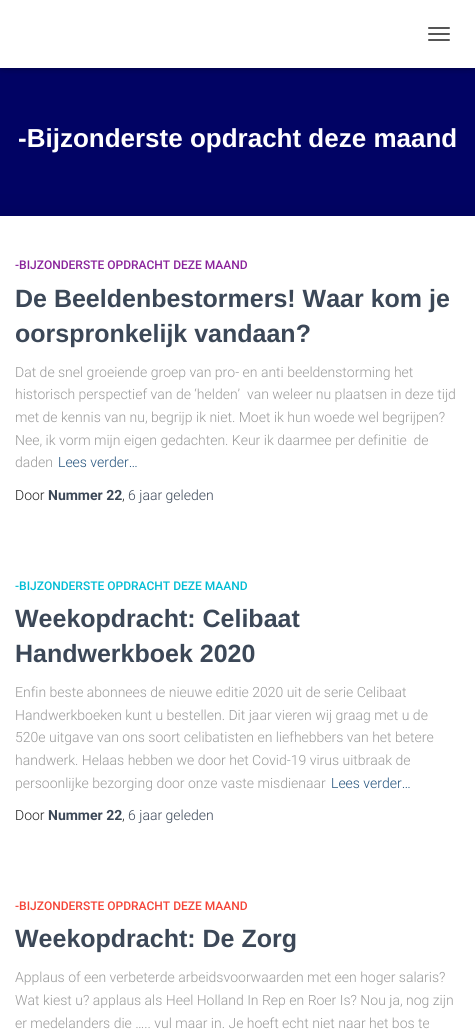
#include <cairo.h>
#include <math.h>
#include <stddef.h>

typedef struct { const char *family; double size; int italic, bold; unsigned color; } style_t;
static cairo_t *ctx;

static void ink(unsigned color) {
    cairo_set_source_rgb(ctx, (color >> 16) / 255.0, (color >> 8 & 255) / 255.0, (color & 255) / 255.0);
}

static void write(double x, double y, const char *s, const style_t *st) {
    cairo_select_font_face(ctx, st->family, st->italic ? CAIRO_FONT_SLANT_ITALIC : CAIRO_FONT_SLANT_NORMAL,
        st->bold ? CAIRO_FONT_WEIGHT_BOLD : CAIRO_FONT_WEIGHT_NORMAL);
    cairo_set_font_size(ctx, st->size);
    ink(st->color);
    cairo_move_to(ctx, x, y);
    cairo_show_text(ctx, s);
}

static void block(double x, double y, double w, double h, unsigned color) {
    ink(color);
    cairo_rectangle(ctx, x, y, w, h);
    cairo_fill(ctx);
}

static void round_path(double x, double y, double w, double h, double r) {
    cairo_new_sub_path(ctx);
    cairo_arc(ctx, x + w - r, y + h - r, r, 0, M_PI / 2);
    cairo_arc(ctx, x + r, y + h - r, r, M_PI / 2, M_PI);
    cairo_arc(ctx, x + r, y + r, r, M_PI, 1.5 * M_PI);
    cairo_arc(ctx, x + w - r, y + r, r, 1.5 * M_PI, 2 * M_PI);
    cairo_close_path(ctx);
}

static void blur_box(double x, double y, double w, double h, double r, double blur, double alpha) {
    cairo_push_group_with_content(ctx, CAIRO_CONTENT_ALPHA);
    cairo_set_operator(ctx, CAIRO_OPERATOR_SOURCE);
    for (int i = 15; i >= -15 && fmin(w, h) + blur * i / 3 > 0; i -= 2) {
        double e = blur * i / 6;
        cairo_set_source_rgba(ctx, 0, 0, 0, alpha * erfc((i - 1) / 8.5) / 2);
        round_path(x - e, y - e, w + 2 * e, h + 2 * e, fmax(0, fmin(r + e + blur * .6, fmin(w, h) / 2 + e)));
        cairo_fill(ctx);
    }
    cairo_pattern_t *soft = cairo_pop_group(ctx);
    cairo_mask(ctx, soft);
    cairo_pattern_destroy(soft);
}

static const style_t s1 = {"Liberation Sans", 26, 0, 1, 0xffffff};
static const style_t s2 = {"Roboto Medium", 12, 0, 0, 0x89229b};
static const style_t s3 = {"Liberation Sans", 25, 0, 1, 0x3c4858};
static const style_t s4 = {"Roboto Light", 14, 0, 0, 0x999999};
static const style_t s5 = {"Roboto Light", 14, 0, 0, 0x23527c};
static const style_t s6 = {"Roboto Light", 14, 0, 0, 0x212121};
static const style_t s7 = {"Roboto", 14, 0, 1, 0x3c4858};
static const style_t s8 = {"Roboto Light", 14, 0, 0, 0x3c4858};
static const style_t s9 = {"Roboto Medium", 12, 0, 0, 0x00bcd4};
static const style_t s10 = {"Roboto Medium", 12, 0, 0, 0xf44336};

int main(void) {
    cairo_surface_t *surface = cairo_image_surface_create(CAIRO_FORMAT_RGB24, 475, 1031);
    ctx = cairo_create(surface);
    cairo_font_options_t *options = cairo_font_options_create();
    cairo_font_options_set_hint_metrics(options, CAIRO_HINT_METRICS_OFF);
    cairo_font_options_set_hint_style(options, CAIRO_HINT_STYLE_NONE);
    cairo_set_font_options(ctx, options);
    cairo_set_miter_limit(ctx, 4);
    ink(0x010364);
    cairo_paint(ctx);
    ink(0x000000);
    blur_box(2, 6, 471, 64, 0, 2.5, 0.1);
    blur_box(0, 1, 475, 68, 0, 5, 0.12);
    blur_box(6, 7, 463, 56, 0, 5, 0.42);
    block(0, 0, 475, 68, 0xffffff);
    ink(0x555555);
    round_path(428, 27, 22, 2, 1);
    cairo_fill(ctx);
    round_path(428, 33, 22, 2, 1);
    cairo_fill(ctx);
    round_path(428, 39, 22, 2, 1);
    cairo_fill(ctx);
    write(18, 147, "-Bijzonderste opdracht deze maand", &s1);
    ink(0x000000);
    blur_box(-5, 217, 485, 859, 0, 15, 0.12);
    block(0, 216, 475, 815, 0xffffff);
    write(15, 269, "-BIJZONDERSTE OPDRACHT DEZE MAAND", &s2);
    write(15, 307, "De Beeldenbestormers! Waar kom je", &s3);
    write(15, 342, "oorspronkelijk vandaan?", &s3);
    write(15, 377, "Dat de snel groeiende groep van pro- en anti beeldenstorming het", &s4);
    write(15, 399, "historisch perspectief van de ‘helden’  van weleer nu plaatsen in deze tijd", &s4);
    write(15, 422, "met de kennis van nu, begrijp ik niet. Moet ik hun woede wel begrijpen?", &s4);
    write(15, 445, "Nee, ik vorm mijn eigen gedachten. Keur ik daarmee per definitie  de", &s4);
    write(15, 467, "daden", &s4);
    write(58, 467, "Lees verder…", &s5);
    write(15, 500, "Door", &s6);
    write(48, 500, "Nummer 22", &s7);
    write(122, 500, ",", &s6);
    write(128, 500, "6 jaar geleden", &s8);
    write(15, 590, "-BIJZONDERSTE OPDRACHT DEZE MAAND", &s9);
    write(15, 627, "Weekopdracht: Celibaat", &s3);
    write(15, 662, "Handwerkboek 2020", &s3);
    write(15, 697, "Enfin beste abonnees de nieuwe editie 2020 uit de serie Celibaat", &s4);
    write(15, 720, "Handwerkboeken kunt u bestellen. Dit jaar vieren wij graag met u de", &s4);
    write(15, 742, "520e uitgave van ons soort celibatisten en liefhebbers van het betere", &s4);
    write(15, 765, "handwerk. Helaas hebben we door het Covid-19 virus uitbraak de", &s4);
    write(15, 788, "persoonlijke bezorging door onze vaste misdienaar", &s4);
    write(331, 788, "Lees verder…", &s5);
    write(15, 820, "Door", &s6);
    write(48, 820, "Nummer 22", &s7);
    write(122, 820, ",", &s6);
    write(128, 820, "6 jaar geleden", &s8);
    write(15, 910, "-BIJZONDERSTE OPDRACHT DEZE MAAND", &s10);
    write(15, 947, "Weekopdracht: De Zorg", &s3);
    write(15, 982, "Applaus of een verbeterde arbeidsvoorwaarden met een hoger salaris?", &s4);
    write(15, 1005, "Wat kiest u? applaus als Heel Holland In Rep en Roer Is? Nou ja, nog zijn", &s4);
    write(15, 1028, "er medelanders die ….. vul maar in. Je hoeft echt niet naar het bos te", &s4);
    cairo_surface_write_to_png(surface, "screenshot.png");
    cairo_font_options_destroy(options);
    cairo_destroy(ctx);
    cairo_surface_destroy(surface);
    return 0;
}
